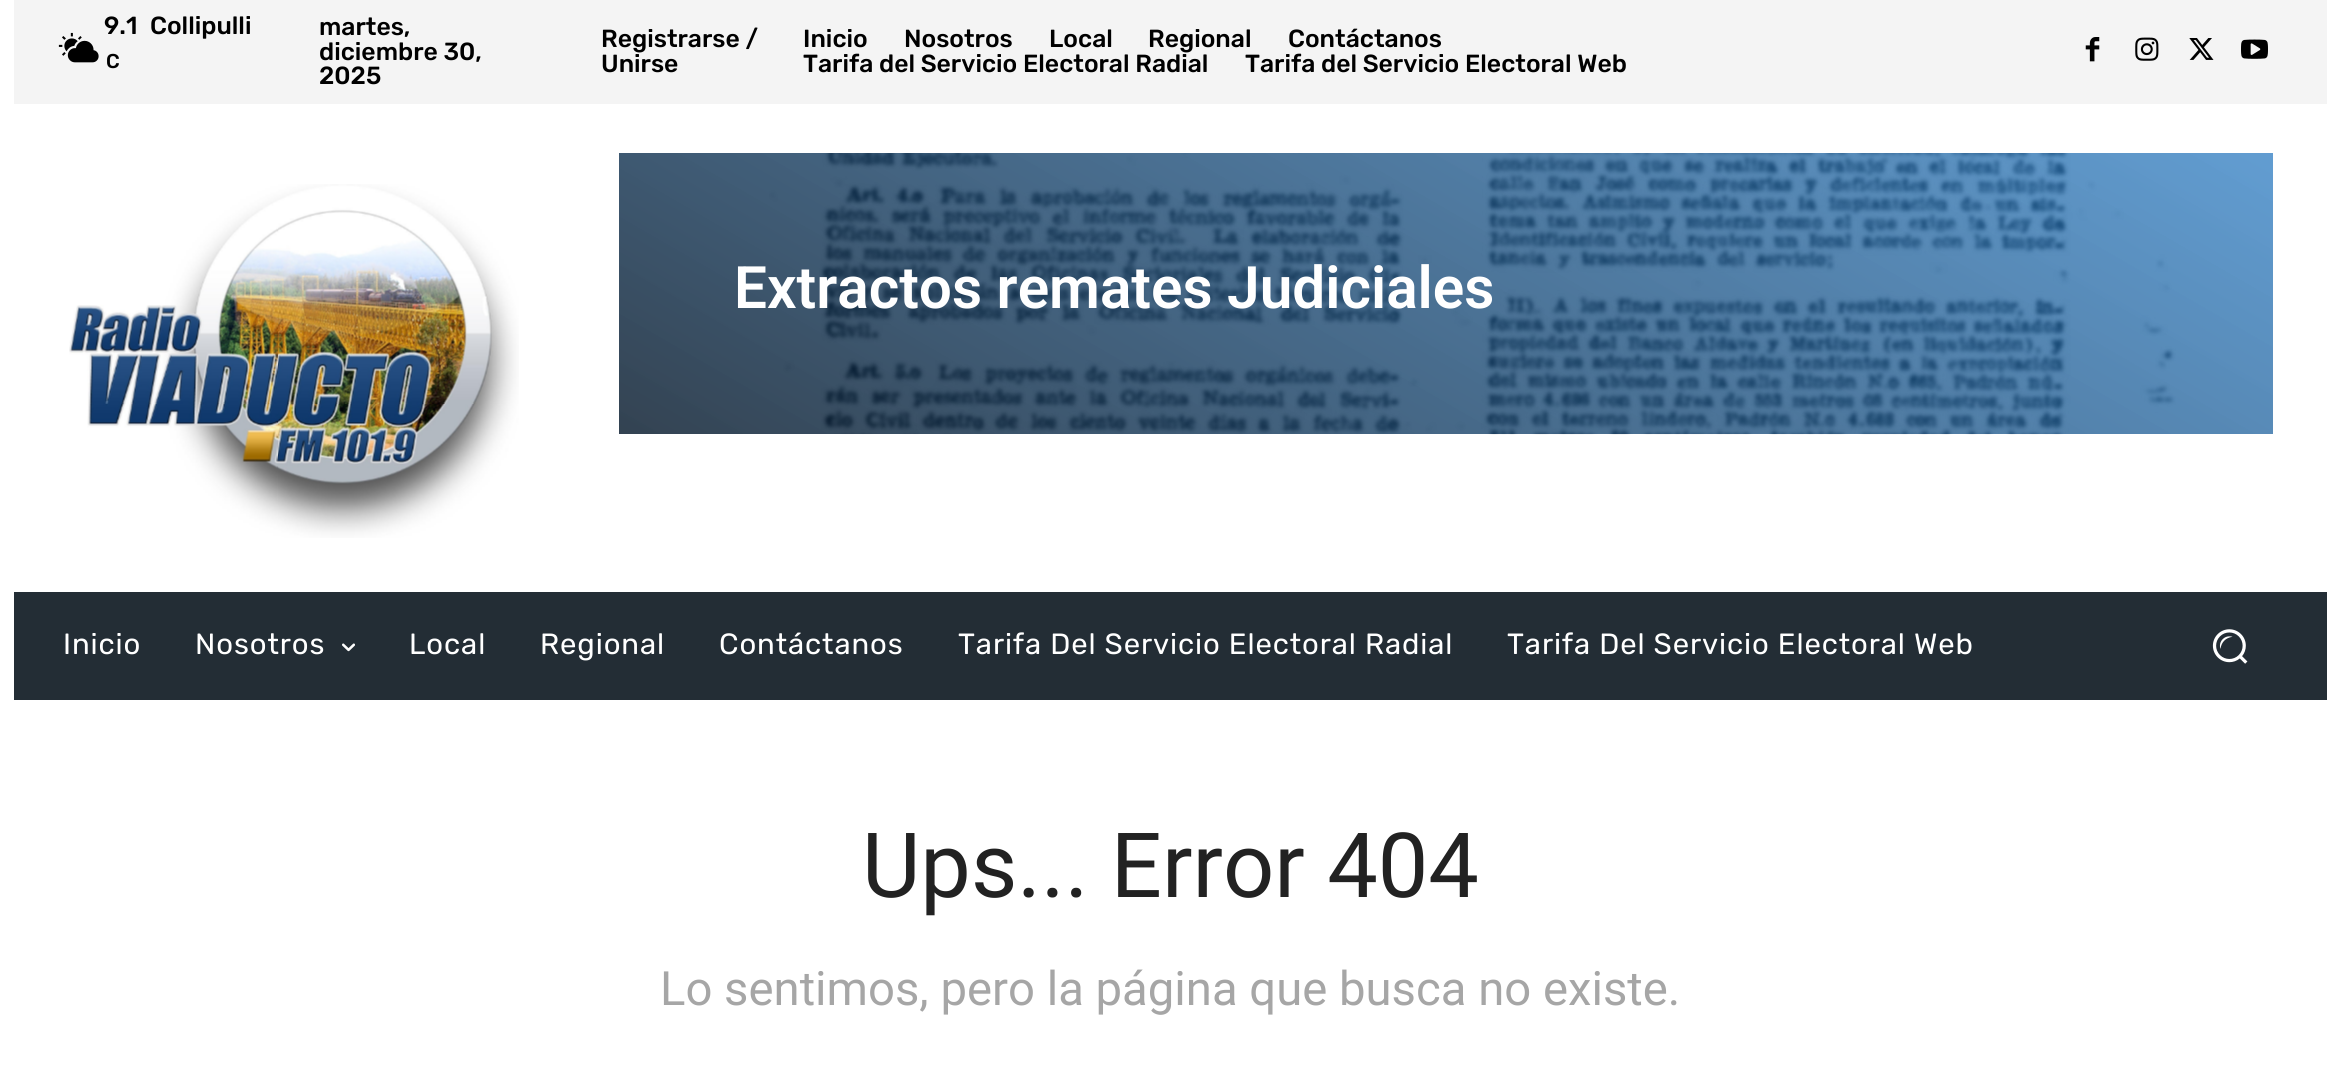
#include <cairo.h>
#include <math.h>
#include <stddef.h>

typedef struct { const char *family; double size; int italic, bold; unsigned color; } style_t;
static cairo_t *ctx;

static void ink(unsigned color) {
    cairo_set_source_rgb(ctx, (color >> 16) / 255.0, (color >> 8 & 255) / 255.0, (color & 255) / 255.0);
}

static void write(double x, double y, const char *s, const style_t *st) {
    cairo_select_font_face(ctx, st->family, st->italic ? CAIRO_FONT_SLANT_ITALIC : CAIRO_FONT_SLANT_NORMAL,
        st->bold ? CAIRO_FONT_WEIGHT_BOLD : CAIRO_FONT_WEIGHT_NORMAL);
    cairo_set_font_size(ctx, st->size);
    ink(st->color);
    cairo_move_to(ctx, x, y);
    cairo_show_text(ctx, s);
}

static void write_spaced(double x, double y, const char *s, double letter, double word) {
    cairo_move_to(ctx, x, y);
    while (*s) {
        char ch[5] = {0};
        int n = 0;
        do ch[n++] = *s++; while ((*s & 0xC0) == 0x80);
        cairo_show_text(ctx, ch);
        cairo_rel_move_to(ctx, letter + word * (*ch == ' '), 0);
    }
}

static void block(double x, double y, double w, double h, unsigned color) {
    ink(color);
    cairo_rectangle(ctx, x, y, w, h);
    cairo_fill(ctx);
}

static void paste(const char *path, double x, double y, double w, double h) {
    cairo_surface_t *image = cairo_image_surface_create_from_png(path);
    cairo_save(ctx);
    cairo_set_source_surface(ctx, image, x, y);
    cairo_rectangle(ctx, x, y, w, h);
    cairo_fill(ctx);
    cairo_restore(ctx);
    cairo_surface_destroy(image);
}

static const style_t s1 = {"Rubik Medium", 24.75, 0, 0, 0x000000};
static const style_t s2 = {"Rubik Medium", 20, 0, 0, 0x000000};
static const style_t s3 = {"Roboto SemiBold", 58.5, 0, 0, 0xffffff};
static const style_t s4 = {"Roboto", 90, 0, 0, 0x222222};
static const style_t s5 = {"Roboto", 47.25, 0, 0, 0xa6a6a6};

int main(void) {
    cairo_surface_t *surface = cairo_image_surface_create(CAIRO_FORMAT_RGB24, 2339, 1092);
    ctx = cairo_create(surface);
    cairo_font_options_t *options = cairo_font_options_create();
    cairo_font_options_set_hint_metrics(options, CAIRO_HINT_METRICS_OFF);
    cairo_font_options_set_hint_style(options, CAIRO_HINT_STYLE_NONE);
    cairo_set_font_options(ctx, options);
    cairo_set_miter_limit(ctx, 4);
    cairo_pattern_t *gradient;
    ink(0xffffff);
    cairo_paint(ctx);
    block(14, 0, 2313, 104, 0xf4f4f4);
    write(104, 34, "9.1", &s1);
    write(106, 68, "C", &s2);
    write(150, 34, "Collipulli", &s1);
    paste("pic1.png", 58, 32, 41, 31);
    write(319, 35, "martes,", &s1);
    write(319, 60, "diciembre 30,", &s1);
    write(319, 84, "2025", &s1);
    write(601, 47, "Registrarse /", &s1);
    write(601, 72, "Unirse", &s1);
    write(803, 47, "Inicio", &s1);
    write(904, 47, "Nosotros", &s1);
    write(1049, 47, "Local", &s1);
    write(1148, 47, "Regional", &s1);
    write(1288, 47, "Contáctanos", &s1);
    write(803, 72, "Tarifa del Servicio Electoral Radial", &s1);
    write(1245, 72, "Tarifa del Servicio Electoral Web", &s1);
    paste("pic2.png", 2085, 37, 15, 25);
    paste("pic3.png", 2135, 37, 24, 24);
    paste("pic4.png", 2189, 38, 25, 22);
    paste("pic5.png", 2241, 39, 27, 20);
    paste("pic6.png", 69, 184, 450, 354);
    paste("pic7.png", 769, 153, 1407, 282);
    gradient = cairo_pattern_create_linear(1178, 757, 1713, -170);
    cairo_pattern_add_color_stop_rgba(gradient, 0, 0, 0.075, 0.149, 0.8);
    cairo_pattern_add_color_stop_rgba(gradient, 1, 0.118, 0.451, 0.745, 0.7);
    cairo_set_source(ctx, gradient);
    cairo_pattern_destroy(gradient);
    cairo_rectangle(ctx, 619, 153, 1654, 281);
    cairo_fill(ctx);
    write(734, 308, "Extractos remates Judiciales", &s3);
    block(14, 592, 2313, 108, 0x232d35);
    cairo_select_font_face(ctx, "Rubik", CAIRO_FONT_SLANT_NORMAL, CAIRO_FONT_WEIGHT_NORMAL);
    cairo_set_font_size(ctx, 29.25);
    ink(0xffffff);
    write_spaced(63, 654, "Inicio", 0.9, 0);
    write_spaced(195, 654, "Nosotros", 0.9, 0);
    paste("pic8.png", 342, 643, 13, 9);
    write_spaced(409, 654, "Local", 0.9, 0);
    write_spaced(540, 654, "Regional", 0.9, 0);
    write_spaced(719, 654, "Contáctanos", 0.9, 0);
    write_spaced(958, 654, "Tarifa Del Servicio Electoral Radial", 0.9, 0);
    write_spaced(1507, 654, "Tarifa Del Servicio Electoral Web", 0.9, 0);
    paste("pic9.png", 2212, 629, 36, 35);
    write(862, 897, "Ups... Error 404", &s4);
    write(660, 1005, "Lo sentimos, pero la página que busca no existe.", &s5);
    cairo_surface_write_to_png(surface, "screenshot.png");
    cairo_font_options_destroy(options);
    cairo_destroy(ctx);
    cairo_surface_destroy(surface);
    return 0;
}
